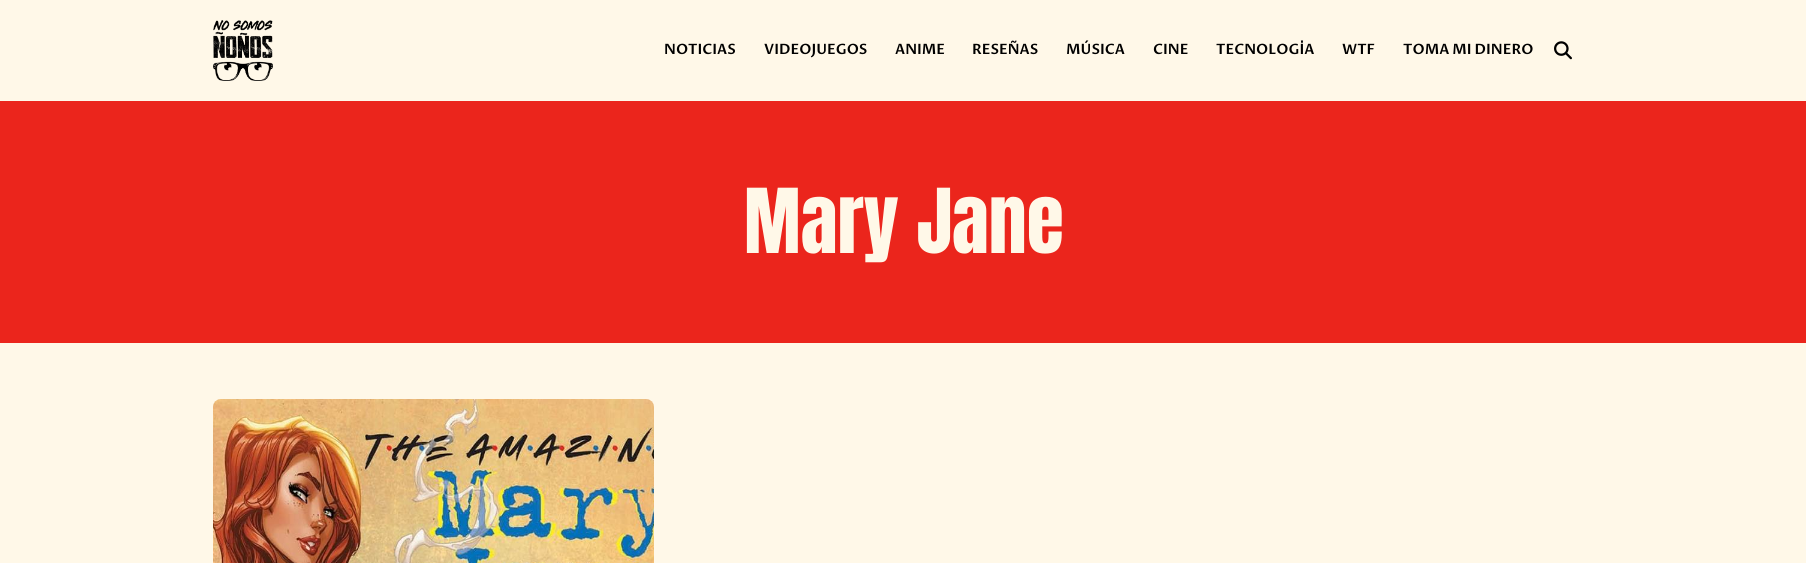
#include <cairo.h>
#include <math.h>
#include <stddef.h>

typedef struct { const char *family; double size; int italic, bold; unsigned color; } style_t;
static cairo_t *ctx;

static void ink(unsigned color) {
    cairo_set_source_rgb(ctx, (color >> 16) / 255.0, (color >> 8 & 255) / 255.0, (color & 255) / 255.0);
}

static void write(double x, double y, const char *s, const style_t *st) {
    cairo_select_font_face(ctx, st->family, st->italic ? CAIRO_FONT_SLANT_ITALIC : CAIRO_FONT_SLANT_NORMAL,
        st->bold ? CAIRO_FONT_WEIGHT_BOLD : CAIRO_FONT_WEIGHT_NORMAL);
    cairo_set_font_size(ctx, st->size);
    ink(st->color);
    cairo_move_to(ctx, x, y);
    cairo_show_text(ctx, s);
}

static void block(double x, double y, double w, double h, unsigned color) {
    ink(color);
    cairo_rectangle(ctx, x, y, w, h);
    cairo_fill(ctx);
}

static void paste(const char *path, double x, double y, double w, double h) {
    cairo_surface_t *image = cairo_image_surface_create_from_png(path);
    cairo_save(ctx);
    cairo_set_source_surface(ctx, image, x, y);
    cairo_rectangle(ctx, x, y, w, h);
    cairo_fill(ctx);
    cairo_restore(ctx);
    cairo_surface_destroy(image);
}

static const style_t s1 = {"Proza Libre SemiBold", 14.25, 0, 0, 0x000000};
static const style_t s2 = {"Anton", 76, 0, 0, 0xfff8e8};

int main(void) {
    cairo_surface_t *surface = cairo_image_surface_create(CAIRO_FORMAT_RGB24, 1806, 563);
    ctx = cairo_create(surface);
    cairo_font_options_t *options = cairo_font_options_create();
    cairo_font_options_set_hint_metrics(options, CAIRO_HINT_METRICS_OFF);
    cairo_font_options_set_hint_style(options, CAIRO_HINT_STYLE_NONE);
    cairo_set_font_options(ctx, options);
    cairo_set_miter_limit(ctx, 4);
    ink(0xfff8e8);
    cairo_paint(ctx);
    paste("pic1.png", 213, 20, 60, 61);
    write(664, 54, "NOTICIAS", &s1);
    write(764, 54, "VIDEOJUEGOS", &s1);
    write(895, 54, "ANIME", &s1);
    write(972, 54, "RESEÑAS", &s1);
    write(1066, 54, "MÚSICA", &s1);
    write(1153, 54, "CINE", &s1);
    write(1216, 54, "TECNOLOGÍA", &s1);
    write(1342, 54, "WTF", &s1);
    write(1403, 54, "TOMA MI DINERO", &s1);
    paste("pic2.png", 1554, 41, 18, 19);
    block(0, 101, 1806, 242, 0xeb251c);
    write(744, 253, "Mary Jane", &s2);
    paste("pic3.png", 213, 399, 441, 164);
    cairo_surface_write_to_png(surface, "screenshot.png");
    cairo_font_options_destroy(options);
    cairo_destroy(ctx);
    cairo_surface_destroy(surface);
    return 0;
}
